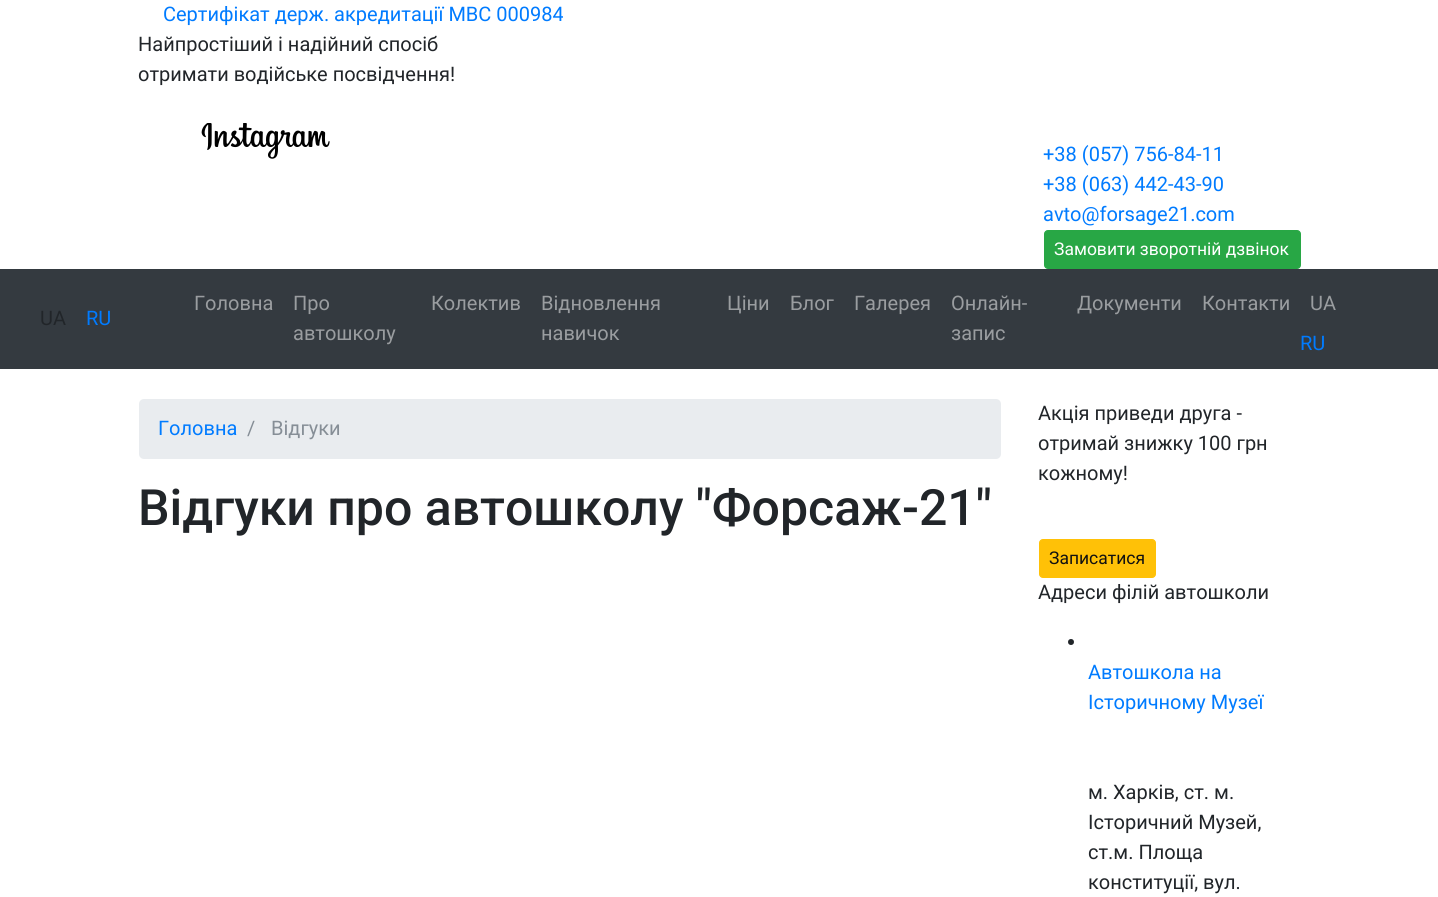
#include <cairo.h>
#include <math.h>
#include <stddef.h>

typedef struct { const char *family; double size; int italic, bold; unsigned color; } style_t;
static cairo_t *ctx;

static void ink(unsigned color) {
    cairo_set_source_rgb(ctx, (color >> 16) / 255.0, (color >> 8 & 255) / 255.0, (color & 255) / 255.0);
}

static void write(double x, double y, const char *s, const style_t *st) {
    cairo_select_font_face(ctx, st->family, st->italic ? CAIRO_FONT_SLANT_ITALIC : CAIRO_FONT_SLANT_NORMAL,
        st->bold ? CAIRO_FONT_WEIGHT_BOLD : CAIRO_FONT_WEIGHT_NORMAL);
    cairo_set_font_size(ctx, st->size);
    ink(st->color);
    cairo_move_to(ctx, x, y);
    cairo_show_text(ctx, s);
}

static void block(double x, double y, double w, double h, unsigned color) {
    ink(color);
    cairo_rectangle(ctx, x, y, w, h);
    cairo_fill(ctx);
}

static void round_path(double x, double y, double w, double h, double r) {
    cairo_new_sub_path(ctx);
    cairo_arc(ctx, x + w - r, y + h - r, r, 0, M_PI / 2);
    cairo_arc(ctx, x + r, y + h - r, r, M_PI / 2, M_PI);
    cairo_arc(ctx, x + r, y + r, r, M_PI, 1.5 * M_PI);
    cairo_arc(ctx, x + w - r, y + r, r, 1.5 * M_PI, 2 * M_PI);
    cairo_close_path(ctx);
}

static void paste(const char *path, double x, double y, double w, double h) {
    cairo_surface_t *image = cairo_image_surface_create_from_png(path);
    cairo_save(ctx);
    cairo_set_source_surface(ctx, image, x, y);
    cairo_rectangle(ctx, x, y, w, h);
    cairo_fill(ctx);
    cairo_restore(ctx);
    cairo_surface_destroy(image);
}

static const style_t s1 = {"Roboto", 20, 0, 0, 0x007bff};
static const style_t s2 = {"Roboto", 20, 0, 0, 0x212529};
static const style_t s3 = {"Roboto", 17.5, 0, 0, 0xffffff};
static const style_t s4 = {"Roboto", 20, 0, 0, 0x9a9da0};
static const style_t s5 = {"Roboto", 20, 0, 0, 0x868e96};
static const style_t s6 = {"Roboto Medium", 50, 0, 0, 0x212529};
static const style_t s7 = {"Roboto", 17.5, 0, 0, 0x111111};

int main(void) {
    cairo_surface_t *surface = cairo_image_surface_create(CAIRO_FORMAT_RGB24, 1438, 897);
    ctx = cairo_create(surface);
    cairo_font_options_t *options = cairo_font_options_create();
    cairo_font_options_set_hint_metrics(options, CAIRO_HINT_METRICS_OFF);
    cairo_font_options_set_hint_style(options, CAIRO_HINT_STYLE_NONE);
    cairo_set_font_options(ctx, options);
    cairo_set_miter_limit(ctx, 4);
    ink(0xffffff);
    cairo_paint(ctx);
    write(163, 21, "Сертифікат держ. акредитації МВС 000984", &s1);
    write(138, 51, "Найпростіший і надійний спосіб", &s2);
    write(138, 81, "отримати водійське посвiдчення!", &s2);
    paste("pic1.png", 201, 123, 129, 36);
    write(1043, 161, "+38 (057) 756-84-11", &s1);
    write(1043, 191, "+38 (063) 442-43-90", &s1);
    write(1043, 221, "avto@forsage21.com", &s1);
    ink(0x28a745);
    round_path(1044.5, 230.5, 256, 38, 3.5);
    cairo_fill_preserve(ctx);
    cairo_set_line_width(ctx, 1);
    cairo_stroke(ctx);
    write(1054, 255, "Замовити зворотній дзвінок", &s3);
    block(0, 269, 1438, 100, 0x343a40);
    write(40, 325, "UA", &s2);
    write(86, 325, "RU", &s1);
    write(194, 310, "Головна", &s4);
    write(293, 310, "Про", &s4);
    write(293, 340, "автошколу", &s4);
    write(431, 310, "Колектив", &s4);
    write(541, 310, "Відновлення", &s4);
    write(541, 340, "навичок", &s4);
    write(727, 310, "Ціни", &s4);
    write(790, 310, "Блог", &s4);
    write(854, 310, "Галерея", &s4);
    write(951, 310, "Онлайн-", &s4);
    write(951, 340, "запис", &s4);
    write(1077, 310, "Документи", &s4);
    write(1202, 310, "Контакти", &s4);
    write(1310, 310, "UA", &s4);
    write(1300, 350, "RU", &s1);
    ink(0xe9ecef);
    round_path(139, 399, 862, 60, 5);
    cairo_fill(ctx);
    write(158, 435, "Головна", &s1);
    write(247, 435, "/", &s5);
    write(271, 435, "Відгуки", &s5);
    write(138, 525, "Відгуки про автошколу \"Форсаж-21\"", &s6);
    write(1038, 420, "Акція приведи друга -", &s2);
    write(1038, 450, "отримай знижку 100 грн", &s2);
    write(1038, 480, "кожному!", &s2);
    ink(0xffc107);
    round_path(1039.5, 539.5, 116, 38, 3.5);
    cairo_fill_preserve(ctx);
    cairo_stroke(ctx);
    write(1049, 564, "Записатися", &s7);
    write(1038, 599, "Адреси філій автошколи", &s2);
    cairo_new_path(ctx);
    cairo_arc(ctx, 1071, 642, 3, 0, 2 * M_PI);
    cairo_fill(ctx);
    write(1088, 679, "Автошкола на", &s1);
    write(1088, 709, "Історичному Музеї", &s1);
    write(1088, 799, "м. Харків, ст. м.", &s2);
    write(1088, 829, "Історичний Музей,", &s2);
    write(1088, 859, "ст.м. Площа", &s2);
    write(1088, 889, "конституції, вул.", &s2);
    cairo_surface_write_to_png(surface, "screenshot.png");
    cairo_font_options_destroy(options);
    cairo_destroy(ctx);
    cairo_surface_destroy(surface);
    return 0;
}
